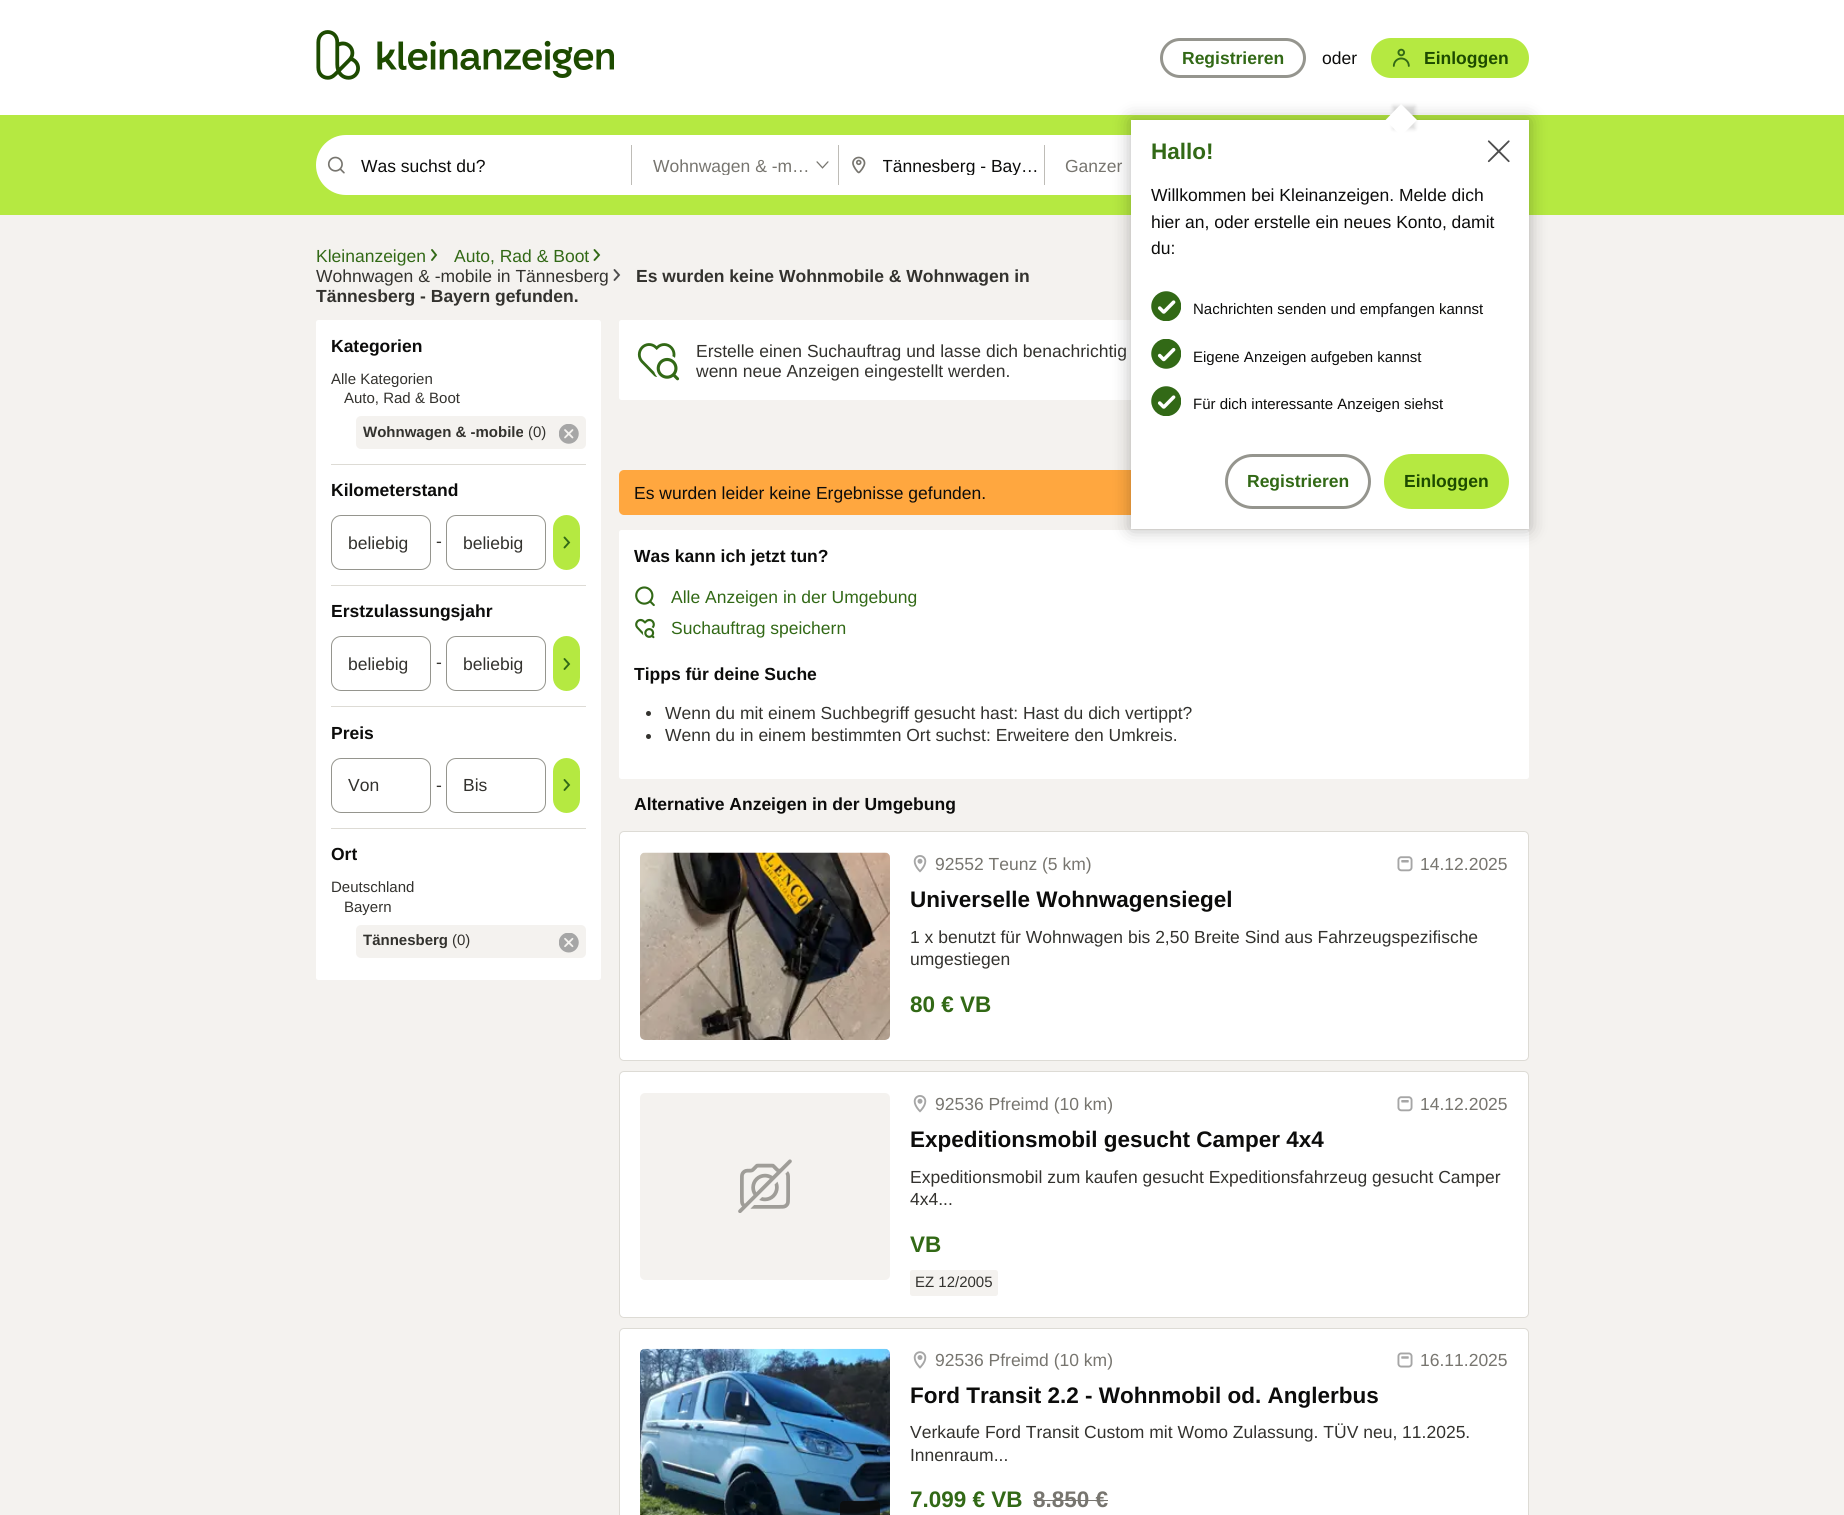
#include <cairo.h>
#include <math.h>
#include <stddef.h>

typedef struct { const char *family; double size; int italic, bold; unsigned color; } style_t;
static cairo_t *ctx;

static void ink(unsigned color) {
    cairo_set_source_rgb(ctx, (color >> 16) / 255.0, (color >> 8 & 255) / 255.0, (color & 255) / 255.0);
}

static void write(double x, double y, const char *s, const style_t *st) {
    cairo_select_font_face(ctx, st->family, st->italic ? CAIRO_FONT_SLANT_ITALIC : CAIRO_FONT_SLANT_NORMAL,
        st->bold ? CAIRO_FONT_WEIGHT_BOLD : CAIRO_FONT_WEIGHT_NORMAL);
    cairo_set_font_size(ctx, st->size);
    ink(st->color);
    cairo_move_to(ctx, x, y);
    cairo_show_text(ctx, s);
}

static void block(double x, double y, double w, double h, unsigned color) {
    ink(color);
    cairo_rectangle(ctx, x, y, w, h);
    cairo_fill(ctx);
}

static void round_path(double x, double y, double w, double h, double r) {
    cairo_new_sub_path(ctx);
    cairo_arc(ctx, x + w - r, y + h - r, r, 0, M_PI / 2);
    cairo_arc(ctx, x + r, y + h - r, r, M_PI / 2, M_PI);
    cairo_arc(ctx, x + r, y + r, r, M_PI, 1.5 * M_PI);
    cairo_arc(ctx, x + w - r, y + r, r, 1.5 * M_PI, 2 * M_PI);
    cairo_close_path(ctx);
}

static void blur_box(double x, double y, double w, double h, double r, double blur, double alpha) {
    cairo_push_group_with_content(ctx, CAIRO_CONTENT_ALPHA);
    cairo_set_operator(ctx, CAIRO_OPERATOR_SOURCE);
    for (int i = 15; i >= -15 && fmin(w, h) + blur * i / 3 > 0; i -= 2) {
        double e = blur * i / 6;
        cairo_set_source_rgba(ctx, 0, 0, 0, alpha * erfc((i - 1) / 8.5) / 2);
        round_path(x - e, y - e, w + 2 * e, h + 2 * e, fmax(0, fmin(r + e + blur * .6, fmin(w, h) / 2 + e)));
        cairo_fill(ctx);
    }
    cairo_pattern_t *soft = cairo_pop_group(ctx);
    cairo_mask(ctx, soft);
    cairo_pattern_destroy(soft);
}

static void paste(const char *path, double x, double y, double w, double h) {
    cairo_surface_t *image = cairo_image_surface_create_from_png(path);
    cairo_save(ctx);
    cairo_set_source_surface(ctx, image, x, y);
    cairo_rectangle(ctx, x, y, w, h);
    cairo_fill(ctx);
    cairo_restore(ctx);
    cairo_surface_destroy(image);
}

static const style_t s1 = {"Liberation Sans", 17.5, 0, 0, 0x0c0c0b};
static const style_t s2 = {"Liberation Sans", 17.5, 0, 0, 0x77756f};
static const style_t s3 = {"Liberation Sans", 17.5, 0, 1, 0x326916};
static const style_t s4 = {"Liberation Sans", 17.5, 0, 1, 0x1d4b00};
static const style_t s5 = {"Liberation Sans", 22.5, 0, 1, 0x326916};
static const style_t s6 = {"Liberation Sans", 15, 0, 0, 0x0c0c0b};
static const style_t s7 = {"Liberation Sans", 17.5, 0, 0, 0x326916};
static const style_t s8 = {"Liberation Sans", 17.5, 0, 0, 0x33322e};
static const style_t s9 = {"Liberation Sans", 17.5, 0, 1, 0x33322e};
static const style_t s10 = {"Liberation Sans", 17.5, 0, 1, 0x0c0c0b};
static const style_t s11 = {"Liberation Sans", 15, 0, 0, 0x33322e};
static const style_t s12 = {"Liberation Sans", 15, 0, 1, 0x33322e};
static const style_t s13 = {"Liberation Sans", 22.5, 0, 1, 0x0c0c0b};
static const style_t s14 = {"Liberation Sans", 22.5, 0, 1, 0x77756f};

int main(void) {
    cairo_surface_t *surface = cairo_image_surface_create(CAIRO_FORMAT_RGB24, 1844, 1515);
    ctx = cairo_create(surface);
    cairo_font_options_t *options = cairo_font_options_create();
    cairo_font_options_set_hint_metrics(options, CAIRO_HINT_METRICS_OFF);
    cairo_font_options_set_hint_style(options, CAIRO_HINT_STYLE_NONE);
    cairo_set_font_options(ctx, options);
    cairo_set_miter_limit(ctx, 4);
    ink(0xffffff);
    cairo_paint(ctx);
    block(0, 115, 1844, 100, 0xb5e941);
    ink(0xffffff);
    round_path(316, 135, 1004, 60, 30);
    cairo_fill(ctx);
    paste("pic1.png", 327, 156, 18, 18);
    write(361, 172, "Was suchst du?", &s1);
    block(631, 145, 1, 40, 0xbebcb7);
    paste("pic2.png", 816, 161, 13, 8);
    cairo_save(ctx);
    cairo_rectangle(ctx, 653, 155, 165, 20);
    cairo_clip(ctx);
    write(653, 172, "Wohnwagen & -m…", &s2);
    cairo_restore(ctx);
    block(838, 145, 1, 40, 0xbebcb7);
    paste("pic3.png", 852, 156, 14, 18);
    cairo_save(ctx);
    cairo_rectangle(ctx, 883, 155, 156, 20);
    cairo_clip(ctx);
    write(882, 172, "Tännesberg - Bay…", &s1);
    cairo_restore(ctx);
    block(1044, 145, 1, 40, 0xbebcb7);
    write(1065, 172, "Ganzer", &s2);
    paste("pic4.png", 316, 30, 298, 50);
    round_path(1161.5, 39.5, 143, 37, 18.5);
    ink(0x95958e);
    cairo_set_line_width(ctx, 3);
    cairo_stroke(ctx);
    write(1182, 64, "Registrieren", &s3);
    write(1322, 64, "oder", &s1);
    ink(0xb5e941);
    round_path(1371, 38, 158, 40, 20);
    cairo_fill(ctx);
    paste("pic5.png", 1392, 48, 18, 19);
    write(1424, 64, "Einloggen", &s4);
    block(0, 215, 1844, 1300, 0xf4f2ef);
    ink(0xffffff);
    round_path(619, 320, 910, 80, 2.5);
    cairo_fill(ctx);
    ink(0xffa73f);
    round_path(619, 470, 910, 45, 5);
    cairo_fill(ctx);
    ink(0xffffff);
    round_path(619, 530, 910, 249, 2.5);
    cairo_fill(ctx);
    ink(0x0c0c0b);
    blur_box(1131, 120, 398, 409, 0, 9, 0.3);
    block(1131, 120, 398, 409, 0xffffff);
    ink(0x0c0c0b);
    blur_box(1393, 106, 22, 23, 0, 2, 0.15);
    ink(0xffffff);
    cairo_new_path(ctx);
    cairo_move_to(ctx, 1385.5, 120);
    cairo_line_to(ctx, 1401, 104);
    cairo_line_to(ctx, 1417, 120);
    cairo_line_to(ctx, 1401, 136);
    cairo_close_path(ctx);
    cairo_fill(ctx);
    write(1151, 159, "Hallo!", &s5);
    paste("pic6.png", 1487, 140, 23, 23);
    write(1151, 201, "Willkommen bei Kleinanzeigen. Melde dich", &s1);
    write(1151, 228, "hier an, oder erstelle ein neues Konto, damit", &s1);
    write(1151, 254, "du:", &s1);
    paste("pic7.png", 1151, 291, 30, 30);
    write(1193, 314, "Nachrichten senden und empfangen kannst", &s6);
    paste("pic8.png", 1151, 339, 30, 30);
    write(1193, 362, "Eigene Anzeigen aufgeben kannst", &s6);
    paste("pic7.png", 1151, 386, 30, 30);
    write(1193, 409, "Für dich interessante Anzeigen siehst", &s6);
    round_path(1226.5, 455.5, 143, 52, 26);
    ink(0x95958e);
    cairo_stroke(ctx);
    write(1247, 487, "Registrieren", &s3);
    ink(0xb5e941);
    round_path(1384, 454, 125, 55, 27.5);
    cairo_fill(ctx);
    write(1404, 487, "Einloggen", &s4);
    cairo_new_path(ctx);
    cairo_move_to(ctx, 432, 250);
    cairo_line_to(ctx, 436, 255);
    cairo_line_to(ctx, 432, 260);
    ink(0x326916);
    cairo_set_line_width(ctx, 1.9);
    cairo_set_line_cap(ctx, CAIRO_LINE_CAP_ROUND);
    cairo_stroke(ctx);
    write(316, 262, "Kleinanzeigen", &s7);
    cairo_new_path(ctx);
    cairo_move_to(ctx, 594.5, 250);
    cairo_line_to(ctx, 599, 255);
    cairo_line_to(ctx, 594.5, 260);
    cairo_stroke(ctx);
    write(454, 262, "Auto, Rad & Boot", &s7);
    cairo_new_path(ctx);
    cairo_move_to(ctx, 614.5, 270);
    cairo_line_to(ctx, 619, 275);
    cairo_line_to(ctx, 614.5, 280);
    ink(0x4d4d4d);
    cairo_stroke(ctx);
    write(316, 282, "Wohnwagen & -mobile in Tännesberg", &s8);
    write(636, 282, "Es wurden keine Wohnmobile & Wohnwagen in", &s9);
    write(316, 302, "Tännesberg - Bayern gefunden.", &s9);
    ink(0xffffff);
    round_path(316, 320, 285, 660, 2.5);
    cairo_fill(ctx);
    write(331, 352, "Kategorien", &s10);
    write(331, 384, "Alle Kategorien", &s11);
    write(344, 403, "Auto, Rad & Boot", &s11);
    ink(0xf4f2ef);
    round_path(356, 416, 230, 33, 5);
    cairo_fill(ctx);
    write(363, 437, "Wohnwagen & -mobile", &s12);
    write(528, 437, "(0)", &s11);
    paste("pic9.png", 559, 424, 20, 20);
    block(331, 464, 255, 1, 0xdddbd5);
    write(331, 496, "Kilometerstand", &s10);
    round_path(331.5, 515.5, 99, 54, 9.5);
    ink(0x95958e);
    cairo_set_line_width(ctx, 1);
    cairo_set_line_cap(ctx, CAIRO_LINE_CAP_BUTT);
    cairo_stroke(ctx);
    write(348, 549, "beliebig", &s8);
    write(436, 547, "-", &s8);
    round_path(446.5, 515.5, 99, 54, 9.5);
    ink(0x95958e);
    cairo_stroke(ctx);
    write(463, 549, "beliebig", &s8);
    ink(0xb5e941);
    round_path(553, 515, 27, 55, 13.5);
    cairo_fill(ctx);
    cairo_new_path(ctx);
    cairo_move_to(ctx, 564.5, 537.5);
    cairo_line_to(ctx, 569, 542.5);
    cairo_line_to(ctx, 564.5, 547.5);
    ink(0x326916);
    cairo_set_line_width(ctx, 1.9);
    cairo_set_line_cap(ctx, CAIRO_LINE_CAP_ROUND);
    cairo_stroke(ctx);
    block(331, 585, 255, 1, 0xdddbd5);
    write(331, 617, "Erstzulassungsjahr", &s10);
    round_path(331.5, 636.5, 99, 54, 9.5);
    ink(0x95958e);
    cairo_set_line_width(ctx, 1);
    cairo_set_line_cap(ctx, CAIRO_LINE_CAP_BUTT);
    cairo_stroke(ctx);
    write(348, 670, "beliebig", &s8);
    write(436, 668, "-", &s8);
    round_path(446.5, 636.5, 99, 54, 9.5);
    ink(0x95958e);
    cairo_stroke(ctx);
    write(463, 670, "beliebig", &s8);
    ink(0xb5e941);
    round_path(553, 636, 27, 55, 13.5);
    cairo_fill(ctx);
    cairo_new_path(ctx);
    cairo_move_to(ctx, 564.5, 659);
    cairo_line_to(ctx, 569, 664);
    cairo_line_to(ctx, 564.5, 669);
    ink(0x326916);
    cairo_set_line_width(ctx, 1.9);
    cairo_set_line_cap(ctx, CAIRO_LINE_CAP_ROUND);
    cairo_stroke(ctx);
    block(331, 706, 255, 1, 0xdddbd5);
    write(331, 739, "Preis", &s10);
    round_path(331.5, 758.5, 99, 54, 9.5);
    ink(0x95958e);
    cairo_set_line_width(ctx, 1);
    cairo_set_line_cap(ctx, CAIRO_LINE_CAP_BUTT);
    cairo_stroke(ctx);
    write(348, 791, "Von", &s8);
    write(436, 791, "-", &s8);
    round_path(446.5, 758.5, 99, 54, 9.5);
    ink(0x95958e);
    cairo_stroke(ctx);
    write(463, 791, "Bis", &s8);
    ink(0xb5e941);
    round_path(553, 758, 27, 55, 13.5);
    cairo_fill(ctx);
    cairo_new_path(ctx);
    cairo_move_to(ctx, 564.5, 780);
    cairo_line_to(ctx, 569, 785);
    cairo_line_to(ctx, 564.5, 790);
    ink(0x326916);
    cairo_set_line_width(ctx, 1.9);
    cairo_set_line_cap(ctx, CAIRO_LINE_CAP_ROUND);
    cairo_stroke(ctx);
    block(331, 828, 255, 1, 0xdddbd5);
    write(331, 860, "Ort", &s10);
    write(331, 892, "Deutschland", &s11);
    write(344, 912, "Bayern", &s11);
    ink(0xf4f2ef);
    round_path(356, 925, 230, 33, 5);
    cairo_fill(ctx);
    write(363, 945, "Tännesberg", &s12);
    write(452, 945, "(0)", &s11);
    paste("pic10.png", 559, 933, 20, 20);
    paste("pic11.png", 637, 343, 43, 38);
    write(696, 357, "Erstelle einen Suchauftrag und lasse dich benachrichtig", &s8);
    write(696, 377, "wenn neue Anzeigen eingestellt werden.", &s8);
    write(634, 499, "Es wurden leider keine Ergebnisse gefunden.", &s1);
    write(634, 562, "Was kann ich jetzt tun?", &s10);
    paste("pic12.png", 635, 586, 20, 21);
    write(671, 603, "Alle Anzeigen in der Umgebung", &s7);
    paste("pic13.png", 635, 618, 20, 21);
    write(671, 634, "Suchauftrag speichern", &s7);
    write(634, 680, "Tipps für deine Suche", &s10);
    ink(0x33322e);
    cairo_new_path(ctx);
    cairo_arc(ctx, 648.5, 713.5, 2.5, 0, 2 * M_PI);
    cairo_fill(ctx);
    write(665, 719, "Wenn du mit einem Suchbegriff gesucht hast: Hast du dich vertippt?", &s8);
    cairo_new_path(ctx);
    cairo_arc(ctx, 648.5, 736.5, 2.5, 0, 2 * M_PI);
    cairo_fill(ctx);
    write(665, 741, "Wenn du in einem bestimmten Ort suchst: Erweitere den Umkreis.", &s8);
    write(634, 810, "Alternative Anzeigen in der Umgebung", &s10);
    ink(0xffffff);
    round_path(619.5, 831.5, 909, 229, 4.5);
    cairo_fill_preserve(ctx);
    ink(0xdddbd5);
    cairo_set_line_width(ctx, 1);
    cairo_set_line_cap(ctx, CAIRO_LINE_CAP_BUTT);
    cairo_stroke(ctx);
    paste("pic14.png", 640, 852, 250, 188);
    paste("pic15.png", 913, 855, 14, 18);
    write(935, 870, "92552 Teunz (5 km)", &s2);
    paste("pic16.png", 1397, 856, 16, 16);
    write(1420, 870, "14.12.2025", &s2);
    write(910, 907, "Universelle Wohnwagensiegel", &s13);
    write(910, 943, "1 x benutzt für Wohnwagen bis 2,50 Breite Sind aus Fahrzeugspezifische", &s8);
    write(910, 965, "umgestiegen", &s8);
    write(910, 1012, "80 € VB", &s5);
    ink(0xffffff);
    round_path(619.5, 1071.5, 909, 246, 4.5);
    cairo_fill_preserve(ctx);
    ink(0xdddbd5);
    cairo_stroke(ctx);
    ink(0xf4f2ef);
    round_path(640, 1093, 250, 187, 5);
    cairo_fill(ctx);
    paste("pic17.png", 738, 1159, 54, 54);
    paste("pic15.png", 913, 1095, 14, 18);
    write(935, 1110, "92536 Pfreimd (10 km)", &s2);
    paste("pic16.png", 1397, 1096, 16, 16);
    write(1420, 1110, "14.12.2025", &s2);
    write(910, 1147, "Expeditionsmobil gesucht Camper 4x4", &s13);
    write(910, 1183, "Expeditionsmobil zum kaufen gesucht Expeditionsfahrzeug gesucht Camper", &s8);
    write(910, 1205, "4x4...", &s8);
    write(910, 1252, "VB", &s5);
    ink(0xf4f2ef);
    round_path(910, 1270, 88, 26, 2.5);
    cairo_fill(ctx);
    write(915, 1287, "EZ 12/2005", &s11);
    ink(0xffffff);
    round_path(619.5, 1328.5, 909, 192, 4.5);
    cairo_fill_preserve(ctx);
    ink(0xdddbd5);
    cairo_stroke(ctx);
    paste("pic18.png", 640, 1348, 250, 167);
    cairo_set_source_rgba(ctx, 0.047, 0.047, 0.043, 0.8);
    round_path(840, 1501, 40, 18, 4);
    cairo_fill(ctx);
    paste("pic19.png", 913, 1351, 14, 18);
    write(935, 1366, "92536 Pfreimd (10 km)", &s2);
    paste("pic20.png", 1397, 1352, 16, 16);
    write(1420, 1366, "16.11.2025", &s2);
    write(910, 1403, "Ford Transit 2.2 - Wohnmobil od. Anglerbus", &s13);
    write(910, 1438, "Verkaufe Ford Transit Custom mit Womo Zulassung. TÜV neu, 11.2025.", &s8);
    write(910, 1461, "Innenraum...", &s8);
    write(910, 1507, "7.099 € VB", &s5);
    write(1033, 1507, "8.850 €", &s14);
    block(1033, 1500, 75, 1, 0x77756f);
    cairo_surface_write_to_png(surface, "screenshot.png");
    cairo_font_options_destroy(options);
    cairo_destroy(ctx);
    cairo_surface_destroy(surface);
    return 0;
}
